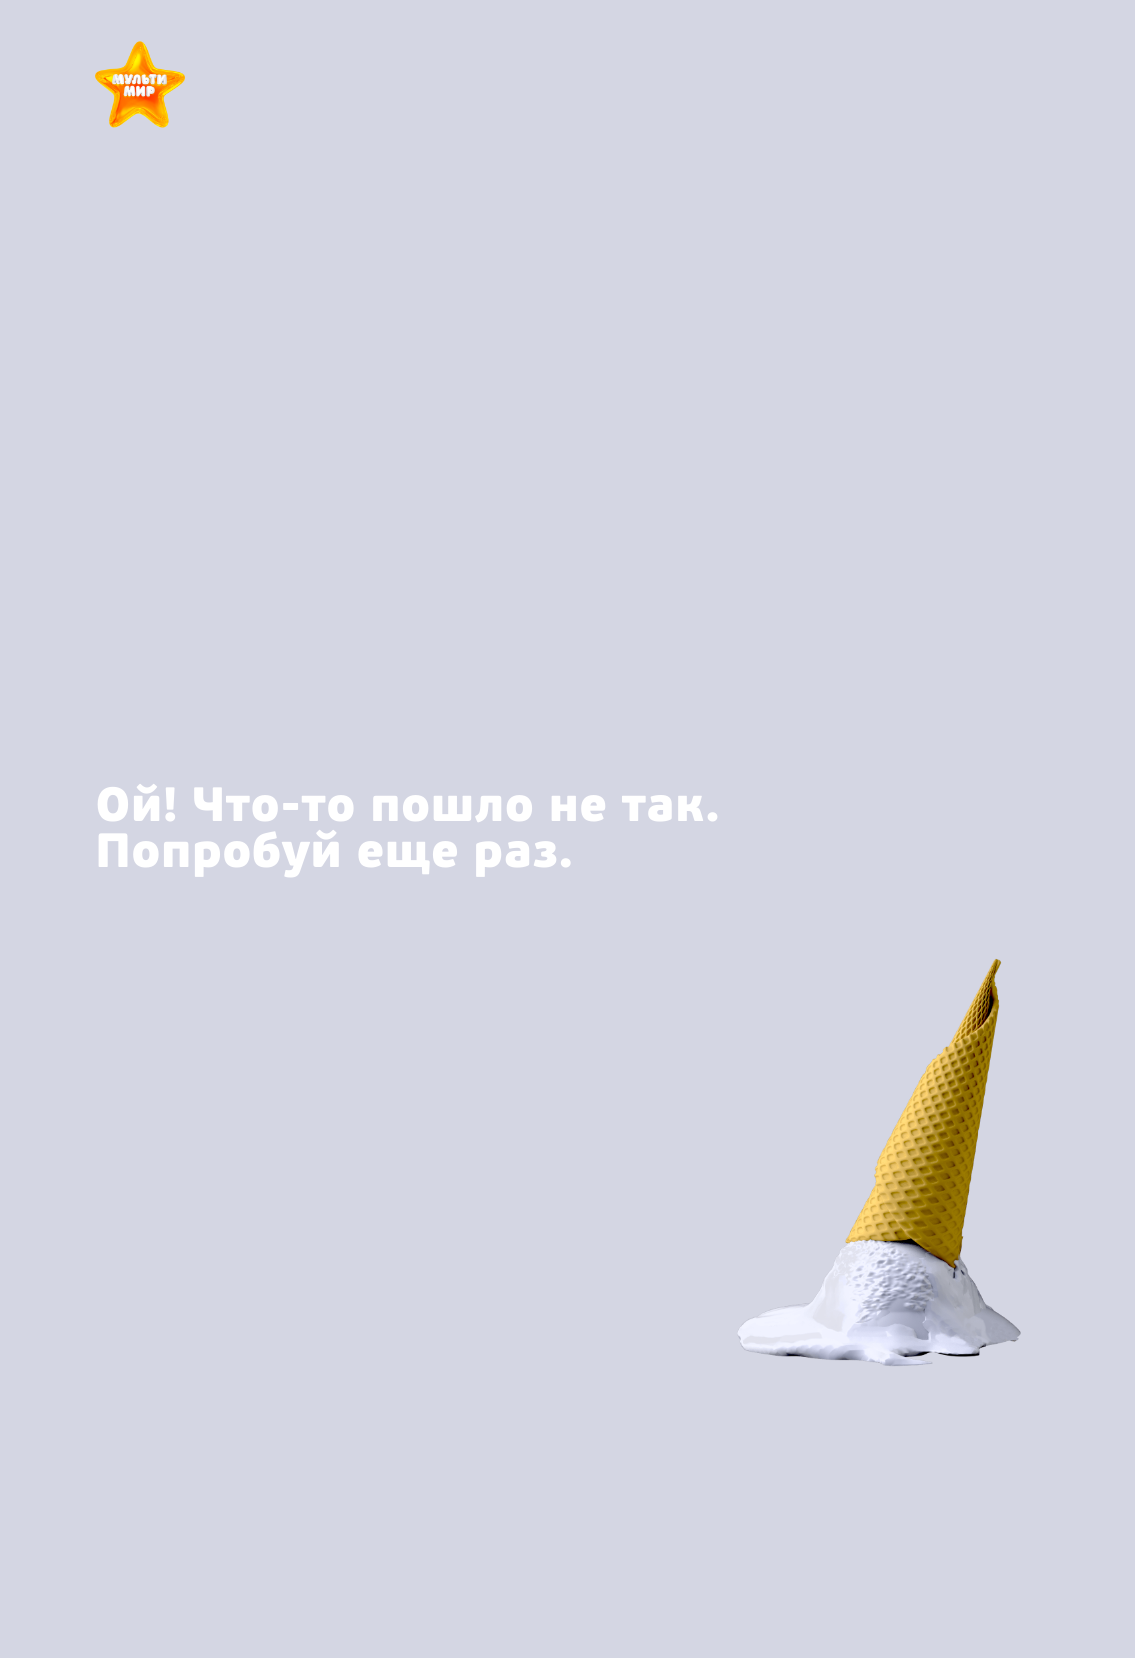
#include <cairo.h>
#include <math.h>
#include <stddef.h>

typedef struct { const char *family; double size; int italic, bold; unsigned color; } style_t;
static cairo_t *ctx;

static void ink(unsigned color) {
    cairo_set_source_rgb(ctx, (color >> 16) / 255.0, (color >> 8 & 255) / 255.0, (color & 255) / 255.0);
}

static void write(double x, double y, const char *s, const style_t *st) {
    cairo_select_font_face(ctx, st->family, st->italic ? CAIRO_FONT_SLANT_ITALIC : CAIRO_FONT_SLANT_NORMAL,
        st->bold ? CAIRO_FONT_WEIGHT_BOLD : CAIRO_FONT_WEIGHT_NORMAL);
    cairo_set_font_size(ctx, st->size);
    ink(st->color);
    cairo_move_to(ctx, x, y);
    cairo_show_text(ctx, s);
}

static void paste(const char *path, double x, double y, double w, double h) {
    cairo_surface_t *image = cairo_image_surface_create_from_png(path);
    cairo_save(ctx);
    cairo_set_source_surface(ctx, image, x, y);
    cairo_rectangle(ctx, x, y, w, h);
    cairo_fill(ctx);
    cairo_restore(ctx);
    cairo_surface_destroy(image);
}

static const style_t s1 = {"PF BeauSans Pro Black", 48.1, 0, 0, 0xffffff};

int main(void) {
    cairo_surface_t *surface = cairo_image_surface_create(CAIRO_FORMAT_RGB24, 1135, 1658);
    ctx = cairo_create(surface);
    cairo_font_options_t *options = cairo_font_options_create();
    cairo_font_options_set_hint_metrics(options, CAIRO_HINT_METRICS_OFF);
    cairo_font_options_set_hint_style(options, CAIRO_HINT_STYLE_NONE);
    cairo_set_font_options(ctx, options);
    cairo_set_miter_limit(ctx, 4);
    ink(0xd4d6e3);
    cairo_paint(ctx);
    paste("pic1.png", 95, 41, 90, 87);
    write(95, 821, "Ой! Что-то пошло не так.", &s1);
    write(95, 867, "Попробуй еще раз.", &s1);
    paste("pic2.png", 737, 958, 284, 409);
    cairo_surface_write_to_png(surface, "screenshot.png");
    cairo_font_options_destroy(options);
    cairo_destroy(ctx);
    cairo_surface_destroy(surface);
    return 0;
}
